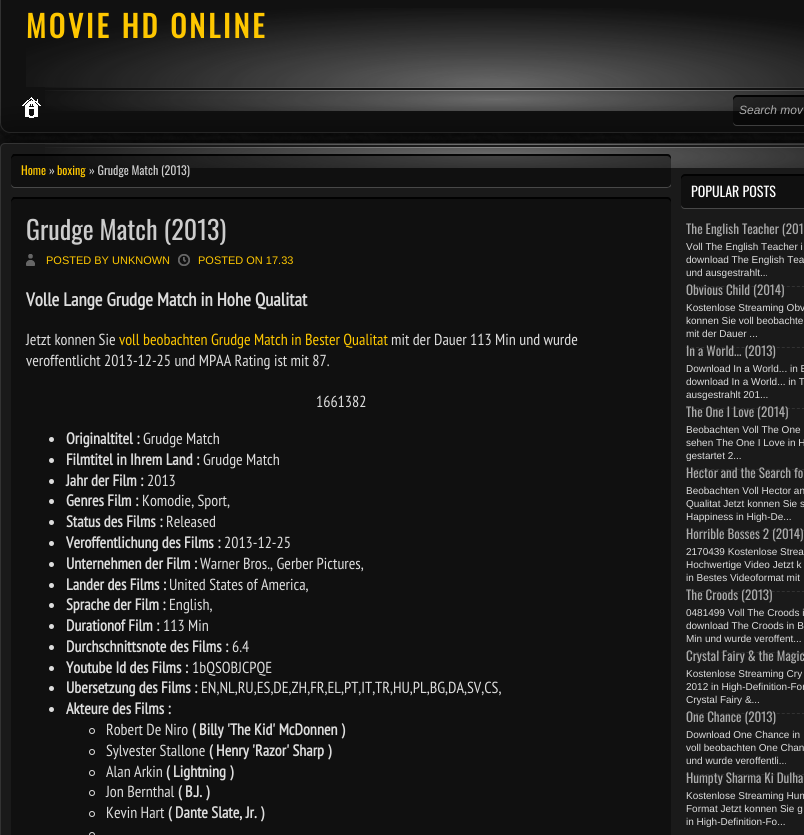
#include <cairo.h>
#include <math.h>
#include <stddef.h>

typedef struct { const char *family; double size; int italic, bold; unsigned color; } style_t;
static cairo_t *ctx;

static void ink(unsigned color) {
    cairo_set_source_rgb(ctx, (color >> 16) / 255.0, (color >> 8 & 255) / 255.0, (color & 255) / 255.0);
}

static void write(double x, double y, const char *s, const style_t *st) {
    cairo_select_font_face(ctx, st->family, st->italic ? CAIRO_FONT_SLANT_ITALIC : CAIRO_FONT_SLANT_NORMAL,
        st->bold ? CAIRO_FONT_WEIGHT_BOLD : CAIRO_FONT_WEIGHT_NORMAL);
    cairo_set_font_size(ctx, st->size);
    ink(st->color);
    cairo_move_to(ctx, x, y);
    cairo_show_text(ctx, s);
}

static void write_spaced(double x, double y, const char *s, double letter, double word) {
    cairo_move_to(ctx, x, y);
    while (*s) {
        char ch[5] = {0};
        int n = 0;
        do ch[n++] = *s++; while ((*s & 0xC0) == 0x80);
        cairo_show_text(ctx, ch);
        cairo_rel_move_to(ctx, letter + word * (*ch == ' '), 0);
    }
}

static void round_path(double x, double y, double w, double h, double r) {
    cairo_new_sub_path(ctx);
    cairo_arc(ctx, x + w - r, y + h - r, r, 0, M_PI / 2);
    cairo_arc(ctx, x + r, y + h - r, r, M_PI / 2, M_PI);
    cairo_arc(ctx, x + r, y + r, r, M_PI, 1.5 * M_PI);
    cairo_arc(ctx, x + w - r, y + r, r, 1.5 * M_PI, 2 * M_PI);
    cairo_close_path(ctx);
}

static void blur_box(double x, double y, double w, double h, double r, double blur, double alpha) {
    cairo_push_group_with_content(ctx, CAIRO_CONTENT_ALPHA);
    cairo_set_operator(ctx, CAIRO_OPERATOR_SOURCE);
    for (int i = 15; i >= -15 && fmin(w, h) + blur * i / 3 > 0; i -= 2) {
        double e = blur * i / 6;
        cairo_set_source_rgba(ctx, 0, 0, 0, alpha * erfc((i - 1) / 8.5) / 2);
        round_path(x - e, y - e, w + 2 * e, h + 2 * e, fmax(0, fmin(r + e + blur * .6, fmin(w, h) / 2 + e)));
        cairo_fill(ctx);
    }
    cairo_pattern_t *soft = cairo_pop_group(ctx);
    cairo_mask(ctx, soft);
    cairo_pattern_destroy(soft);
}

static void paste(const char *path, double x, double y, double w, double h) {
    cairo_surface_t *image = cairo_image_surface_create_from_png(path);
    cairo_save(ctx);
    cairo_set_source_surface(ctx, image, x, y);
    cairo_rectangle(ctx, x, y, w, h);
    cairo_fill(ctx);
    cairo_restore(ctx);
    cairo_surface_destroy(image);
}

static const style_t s1 = {"Liberation Sans", 12, 1, 0, 0xaaaaaa};
static const style_t s2 = {"Oswald", 12, 0, 0, 0xfec700};
static const style_t s3 = {"Oswald", 12, 0, 0, 0xcccccc};
static const style_t s4 = {"Oswald", 26, 0, 0, 0xcccccc};
static const style_t s5 = {"Liberation Sans", 11, 0, 0, 0xfec700};
static const style_t s6 = {"PT Sans Narrow", 18.75, 0, 1, 0xdddddd};
static const style_t s7 = {"PT Sans Narrow", 16, 0, 0, 0xdddddd};
static const style_t s8 = {"PT Sans Narrow", 16, 0, 0, 0xfec700};
static const style_t s9 = {"PT Sans Narrow", 16, 0, 1, 0xdddddd};
static const style_t s10 = {"Oswald", 14, 0, 0, 0xffffff};
static const style_t s11 = {"Oswald", 13, 0, 0, 0xaaaaaa};
static const style_t s12 = {"Liberation Sans", 10, 0, 0, 0xdddddd};

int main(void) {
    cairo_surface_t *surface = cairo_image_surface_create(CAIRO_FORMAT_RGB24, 804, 835);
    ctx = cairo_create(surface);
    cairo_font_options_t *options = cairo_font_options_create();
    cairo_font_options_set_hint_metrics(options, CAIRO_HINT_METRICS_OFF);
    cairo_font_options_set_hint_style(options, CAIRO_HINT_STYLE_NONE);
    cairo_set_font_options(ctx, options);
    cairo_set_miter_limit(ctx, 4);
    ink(0x000000);
    cairo_paint(ctx);
    paste("pic1.png", 0, 123, 804, 25);
    blur_box(0, -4, 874, 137, 10, 20, 1);
    ink(0x111111);
    cairo_new_path(ctx);
    cairo_move_to(ctx, 0.5, -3.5);
    cairo_line_to(ctx, 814.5, -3.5);
    cairo_line_to(ctx, 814.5, 123);
    cairo_curve_to(ctx, 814.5, 128, 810, 132.5, 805, 132.5);
    cairo_line_to(ctx, 10, 132.5);
    cairo_curve_to(ctx, 5, 132.5, 0.5, 128, 0.5, 123);
    cairo_close_path(ctx);
    cairo_fill_preserve(ctx);
    ink(0x323232);
    cairo_set_line_width(ctx, 1);
    cairo_stroke(ctx);
    paste("pic2.png", 26, 8, 778, 79);
    cairo_select_font_face(ctx, "Oswald", CAIRO_FONT_SLANT_NORMAL, CAIRO_FONT_WEIGHT_BOLD);
    cairo_set_font_size(ctx, 30);
    ink(0xfec700);
    write_spaced(26, 38, "MOVIE HD ONLINE", 3, 0);
    paste("pic3.png", 45, 87, 759, 24);
    ink(0x000000);
    blur_box(0, 143, 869, 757, 5, 20, 1);
    paste("pic4.png", 22, 97, 19, 21);
    ink(0x3e3e3e);
    cairo_new_path(ctx);
    cairo_move_to(ctx, 733, 121);
    cairo_curve_to(ctx, 733, 124, 734, 126, 737, 126);
    cairo_line_to(ctx, 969, 126);
    cairo_curve_to(ctx, 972, 126, 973, 124, 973, 121);
    cairo_curve_to(ctx, 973, 123, 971, 125, 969, 125);
    cairo_line_to(ctx, 737, 125);
    cairo_curve_to(ctx, 735, 125, 733, 123, 733, 121);
    cairo_close_path(ctx);
    cairo_fill(ctx);
    cairo_set_source_rgba(ctx, 0, 0, 0, 0.4);
    round_path(733, 95, 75, 30, 4);
    cairo_fill(ctx);
    cairo_set_source_rgba(ctx, 0, 0, 0, 0.9);
    cairo_new_path(ctx);
    cairo_move_to(ctx, 737, 97);
    cairo_line_to(ctx, 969, 97);
    cairo_curve_to(ctx, 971, 97, 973, 99, 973, 101);
    cairo_line_to(ctx, 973, 99);
    cairo_curve_to(ctx, 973, 97, 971, 95, 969, 95);
    cairo_line_to(ctx, 737, 95);
    cairo_curve_to(ctx, 735, 95, 733, 97, 733, 99);
    cairo_line_to(ctx, 733, 101);
    cairo_curve_to(ctx, 733, 99, 735, 97, 737, 97);
    cairo_close_path(ctx);
    cairo_fill(ctx);
    write(739, 114, "Search mov", &s1);
    ink(0x1a1a1a);
    round_path(0, 143, 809, 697, 5);
    cairo_fill(ctx);
    paste("pic5.png", 45, 144, 759, 24);
    round_path(0.5, 143.5, 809, 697, 4.5);
    ink(0x333333);
    cairo_stroke(ctx);
    ink(0x484848);
    cairo_new_path(ctx);
    cairo_move_to(ctx, 11, 183);
    cairo_curve_to(ctx, 11, 186, 12, 188, 15, 188);
    cairo_line_to(ctx, 667, 188);
    cairo_line_to(ctx, 670, 187);
    cairo_line_to(ctx, 671, 186);
    cairo_line_to(ctx, 671, 183);
    cairo_curve_to(ctx, 671, 185, 669, 187, 667, 187);
    cairo_line_to(ctx, 15, 187);
    cairo_curve_to(ctx, 13, 187, 11, 185, 11, 183);
    cairo_close_path(ctx);
    cairo_fill(ctx);
    cairo_set_source_rgba(ctx, 0, 0, 0, 0.4);
    round_path(11, 154, 660, 33, 4);
    cairo_fill(ctx);
    cairo_set_source_rgba(ctx, 0, 0, 0, 0.9);
    cairo_new_path(ctx);
    cairo_move_to(ctx, 15, 156);
    cairo_line_to(ctx, 667, 156);
    cairo_curve_to(ctx, 669, 156, 671, 158, 671, 160);
    cairo_curve_to(ctx, 671, 157, 671, 154, 667, 154);
    cairo_line_to(ctx, 13, 154);
    cairo_line_to(ctx, 12, 156);
    cairo_curve_to(ctx, 11, 157, 11, 159, 11, 160);
    cairo_curve_to(ctx, 11, 158, 13, 156, 15, 156);
    cairo_close_path(ctx);
    cairo_fill(ctx);
    write(21, 175, "Home", &s2);
    write(49, 175, "»", &s3);
    write(57, 175, "boxing", &s2);
    write(89, 175, "» Grudge Match (2013)", &s3);
    ink(0x101010);
    round_path(11, 197, 660, 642, 4);
    cairo_fill(ctx);
    cairo_set_source_rgba(ctx, 0, 0, 0, 0.9);
    cairo_new_path(ctx);
    cairo_move_to(ctx, 15, 199);
    cairo_line_to(ctx, 667, 199);
    cairo_curve_to(ctx, 669, 199, 671, 201, 671, 203);
    cairo_curve_to(ctx, 671, 200, 671, 197, 667, 197);
    cairo_line_to(ctx, 13, 197);
    cairo_line_to(ctx, 12, 199);
    cairo_curve_to(ctx, 11, 200, 11, 202, 11, 203);
    cairo_curve_to(ctx, 11, 201, 13, 199, 15, 199);
    cairo_close_path(ctx);
    cairo_fill(ctx);
    write(26, 240, "Grudge Match (2013)", &s4);
    paste("pic6.png", 26, 254, 9, 12);
    write(46, 264, "POSTED BY UNKNOWN", &s5);
    paste("pic7.png", 178, 254, 12, 12);
    write(198, 264, "POSTED ON 17.33", &s5);
    write(26, 306, "Volle Lange Grudge Match in Hohe Qualitat", &s6);
    write(26, 345, "Jetzt konnen Sie", &s7);
    write(119, 345, "voll beobachten Grudge Match in Bester Qualitat", &s8);
    write(391, 345, "mit der Dauer 113 Min und wurde", &s7);
    write(26, 366, "veroffentlicht 2013-12-25 und MPAA Rating ist mit 87.", &s7);
    write(316, 407, "1661382", &s7);
    cairo_new_path(ctx);
    cairo_arc(ctx, 51.5, 439.5, 2.5, 0, 2 * M_PI);
    cairo_fill(ctx);
    write(66, 444, "Originaltitel :", &s9);
    write(143, 444, "Grudge Match", &s7);
    cairo_new_path(ctx);
    cairo_arc(ctx, 51.5, 460.5, 2.5, 0, 2 * M_PI);
    cairo_fill(ctx);
    write(66, 465, "Filmtitel in Ihrem Land :", &s9);
    write(203, 465, "Grudge Match", &s7);
    cairo_new_path(ctx);
    cairo_arc(ctx, 51.5, 481.5, 2.5, 0, 2 * M_PI);
    cairo_fill(ctx);
    write(66, 486, "Jahr der Film :", &s9);
    write(147, 486, "2013", &s7);
    cairo_new_path(ctx);
    cairo_arc(ctx, 51.5, 501.5, 2.5, 0, 2 * M_PI);
    cairo_fill(ctx);
    write(66, 506, "Genres Film :", &s9);
    write(142, 506, "Komodie, Sport,", &s7);
    cairo_new_path(ctx);
    cairo_arc(ctx, 51.5, 522.5, 2.5, 0, 2 * M_PI);
    cairo_fill(ctx);
    write(66, 527, "Status des Films :", &s9);
    write(166, 527, "Released", &s7);
    cairo_new_path(ctx);
    cairo_arc(ctx, 51.5, 543.5, 2.5, 0, 2 * M_PI);
    cairo_fill(ctx);
    write(66, 548, "Veroffentlichung des Films :", &s9);
    write(224, 548, "2013-12-25", &s7);
    cairo_new_path(ctx);
    cairo_arc(ctx, 51.5, 564.5, 2.5, 0, 2 * M_PI);
    cairo_fill(ctx);
    write(66, 569, "Unternehmen der Film :", &s9);
    write(200, 569, "Warner Bros., Gerber Pictures,", &s7);
    cairo_new_path(ctx);
    cairo_arc(ctx, 51.5, 585.5, 2.5, 0, 2 * M_PI);
    cairo_fill(ctx);
    write(66, 590, "Lander des Films :", &s9);
    write(169, 590, "United States of America,", &s7);
    cairo_new_path(ctx);
    cairo_arc(ctx, 51.5, 605.5, 2.5, 0, 2 * M_PI);
    cairo_fill(ctx);
    write(66, 610, "Sprache der Film :", &s9);
    write(169, 610, "English,", &s7);
    cairo_new_path(ctx);
    cairo_arc(ctx, 51.5, 626.5, 2.5, 0, 2 * M_PI);
    cairo_fill(ctx);
    write(66, 631, "Durationof Film :", &s9);
    write(163, 631, "113 Min", &s7);
    cairo_new_path(ctx);
    cairo_arc(ctx, 51.5, 647.5, 2.5, 0, 2 * M_PI);
    cairo_fill(ctx);
    write(66, 652, "Durchschnittsnote des Films :", &s9);
    write(232, 652, "6.4", &s7);
    cairo_new_path(ctx);
    cairo_arc(ctx, 51.5, 668.5, 2.5, 0, 2 * M_PI);
    cairo_fill(ctx);
    write(66, 673, "Youtube Id des Films :", &s9);
    write(192, 673, "1bQSOBJCPQE", &s7);
    cairo_new_path(ctx);
    cairo_arc(ctx, 51.5, 688.5, 2.5, 0, 2 * M_PI);
    cairo_fill(ctx);
    write(66, 693, "Ubersetzung des Films :", &s9);
    write(201, 693, "EN,NL,RU,ES,DE,ZH,FR,EL,PT,IT,TR,HU,PL,BG,DA,SV,CS,", &s7);
    cairo_new_path(ctx);
    cairo_arc(ctx, 51.5, 709.5, 2.5, 0, 2 * M_PI);
    cairo_fill(ctx);
    write(66, 714, "Akteure des Films :", &s9);
    cairo_new_path(ctx);
    cairo_arc(ctx, 92, 731, 2.5, 0, 2 * M_PI);
    cairo_stroke(ctx);
    write(106, 735, "Robert De Niro", &s7);
    write(192, 735, "( Billy 'The Kid' McDonnen )", &s9);
    cairo_new_path(ctx);
    cairo_arc(ctx, 92, 752, 2.5, 0, 2 * M_PI);
    cairo_stroke(ctx);
    write(106, 756, "Sylvester Stallone", &s7);
    write(209, 756, "( Henry 'Razor' Sharp )", &s9);
    cairo_new_path(ctx);
    cairo_arc(ctx, 92, 773, 2.5, 0, 2 * M_PI);
    cairo_stroke(ctx);
    write(106, 777, "Alan Arkin", &s7);
    write(166, 777, "( Lightning )", &s9);
    cairo_new_path(ctx);
    cairo_arc(ctx, 92, 793, 2.5, 0, 2 * M_PI);
    cairo_stroke(ctx);
    write(106, 797, "Jon Bernthal", &s7);
    write(178, 797, "( B.J. )", &s9);
    cairo_new_path(ctx);
    cairo_arc(ctx, 92, 814, 2.5, 0, 2 * M_PI);
    cairo_stroke(ctx);
    write(106, 818, "Kevin Hart", &s7);
    write(168, 818, "( Dante Slate, Jr. )", &s9);
    cairo_new_path(ctx);
    cairo_arc(ctx, 92, 835, 2.5, 0, 2 * M_PI);
    cairo_stroke(ctx);
    ink(0x484848);
    cairo_new_path(ctx);
    cairo_move_to(ctx, 681, 204);
    cairo_curve_to(ctx, 681, 207, 682, 209, 685, 209);
    cairo_line_to(ctx, 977, 209);
    cairo_curve_to(ctx, 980, 209, 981, 207, 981, 204);
    cairo_curve_to(ctx, 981, 206, 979, 208, 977, 208);
    cairo_line_to(ctx, 685, 208);
    cairo_curve_to(ctx, 683, 208, 681, 206, 681, 204);
    cairo_close_path(ctx);
    cairo_fill(ctx);
    cairo_set_source_rgba(ctx, 0, 0, 0, 0.4);
    round_path(681, 174, 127, 34, 4);
    cairo_fill(ctx);
    cairo_set_source_rgba(ctx, 0, 0, 0, 0.9);
    cairo_new_path(ctx);
    cairo_move_to(ctx, 685, 176);
    cairo_line_to(ctx, 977, 176);
    cairo_curve_to(ctx, 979, 176, 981, 178, 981, 180);
    cairo_line_to(ctx, 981, 178);
    cairo_curve_to(ctx, 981, 176, 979, 174, 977, 174);
    cairo_line_to(ctx, 685, 174);
    cairo_curve_to(ctx, 683, 174, 681, 176, 681, 178);
    cairo_line_to(ctx, 681, 180);
    cairo_curve_to(ctx, 681, 178, 683, 176, 685, 176);
    cairo_close_path(ctx);
    cairo_fill(ctx);
    write(691, 197, "POPULAR POSTS", &s10);
    cairo_new_path(ctx);
    cairo_move_to(ctx, 686, 286.5);
    cairo_line_to(ctx, 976, 286.5);
    ink(0x323232);
    cairo_set_dash(ctx, (double[]){3, 2.04}, 2, 0);
    cairo_stroke(ctx);
    write(686, 234, "The English Teacher (201", &s11);
    write(686, 250, "Voll The English Teacher i", &s12);
    write(686, 263, "download The English Tea", &s12);
    write(686, 276, "und ausgestrahlt...", &s12);
    cairo_new_path(ctx);
    cairo_move_to(ctx, 686, 347.5);
    cairo_line_to(ctx, 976, 347.5);
    ink(0x323232);
    cairo_stroke(ctx);
    write(686, 295, "Obvious Child (2014)", &s11);
    write(686, 311, "Kostenlose Streaming Obv", &s12);
    write(686, 324, "konnen Sie voll beobachte", &s12);
    write(686, 337, "mit der Dauer ...", &s12);
    cairo_new_path(ctx);
    cairo_move_to(ctx, 686, 408.5);
    cairo_line_to(ctx, 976, 408.5);
    ink(0x323232);
    cairo_stroke(ctx);
    write(686, 356, "In a World... (2013)", &s11);
    write(686, 372, "Download In a World... in B", &s12);
    write(686, 385, "download In a World... in T", &s12);
    write(686, 398, "ausgestrahlt 201...", &s12);
    cairo_new_path(ctx);
    cairo_move_to(ctx, 686, 469.5);
    cairo_line_to(ctx, 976, 469.5);
    ink(0x323232);
    cairo_stroke(ctx);
    write(686, 417, "The One I Love (2014)", &s11);
    write(686, 433, "Beobachten Voll The One", &s12);
    write(686, 446, "sehen The One I Love in H", &s12);
    write(686, 459, "gestartet 2...", &s12);
    cairo_new_path(ctx);
    cairo_move_to(ctx, 686, 530.5);
    cairo_line_to(ctx, 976, 530.5);
    ink(0x323232);
    cairo_stroke(ctx);
    write(686, 478, "Hector and the Search fo", &s11);
    write(686, 494, "Beobachten Voll Hector an", &s12);
    write(686, 507, "Qualitat Jetzt konnen Sie s", &s12);
    write(686, 520, "Happiness in High-De...", &s12);
    cairo_new_path(ctx);
    cairo_move_to(ctx, 686, 591.5);
    cairo_line_to(ctx, 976, 591.5);
    ink(0x323232);
    cairo_stroke(ctx);
    write(686, 539, "Horrible Bosses 2 (2014)", &s11);
    write(686, 555, "2170439 Kostenlose Strea", &s12);
    write(686, 568, "Hochwertige Video Jetzt k", &s12);
    write(686, 581, "in Bestes Videoformat mit", &s12);
    cairo_new_path(ctx);
    cairo_move_to(ctx, 686, 652.5);
    cairo_line_to(ctx, 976, 652.5);
    ink(0x323232);
    cairo_stroke(ctx);
    write(686, 600, "The Croods (2013)", &s11);
    write(686, 616, "0481499 Voll The Croods i", &s12);
    write(686, 629, "download The Croods in B", &s12);
    write(686, 642, "Min und wurde veroffent...", &s12);
    cairo_new_path(ctx);
    cairo_move_to(ctx, 686, 713.5);
    cairo_line_to(ctx, 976, 713.5);
    ink(0x323232);
    cairo_stroke(ctx);
    write(686, 661, "Crystal Fairy & the Magic", &s11);
    write(686, 677, "Kostenlose Streaming Cry", &s12);
    write(686, 690, "2012 in High-Definition-For", &s12);
    write(686, 703, "Crystal Fairy &...", &s12);
    cairo_new_path(ctx);
    cairo_move_to(ctx, 686, 774.5);
    cairo_line_to(ctx, 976, 774.5);
    ink(0x323232);
    cairo_stroke(ctx);
    write(686, 722, "One Chance (2013)", &s11);
    write(686, 738, "Download One Chance in", &s12);
    write(686, 751, "voll beobachten One Chan", &s12);
    write(686, 764, "und wurde veroffentli...", &s12);
    write(686, 783, "Humpty Sharma Ki Dulha", &s11);
    write(686, 799, "Kostenlose Streaming Hum", &s12);
    write(686, 812, "Format Jetzt konnen Sie g", &s12);
    write(686, 825, "in High-Definition-Fo...", &s12);
    cairo_surface_write_to_png(surface, "screenshot.png");
    cairo_font_options_destroy(options);
    cairo_destroy(ctx);
    cairo_surface_destroy(surface);
    return 0;
}
